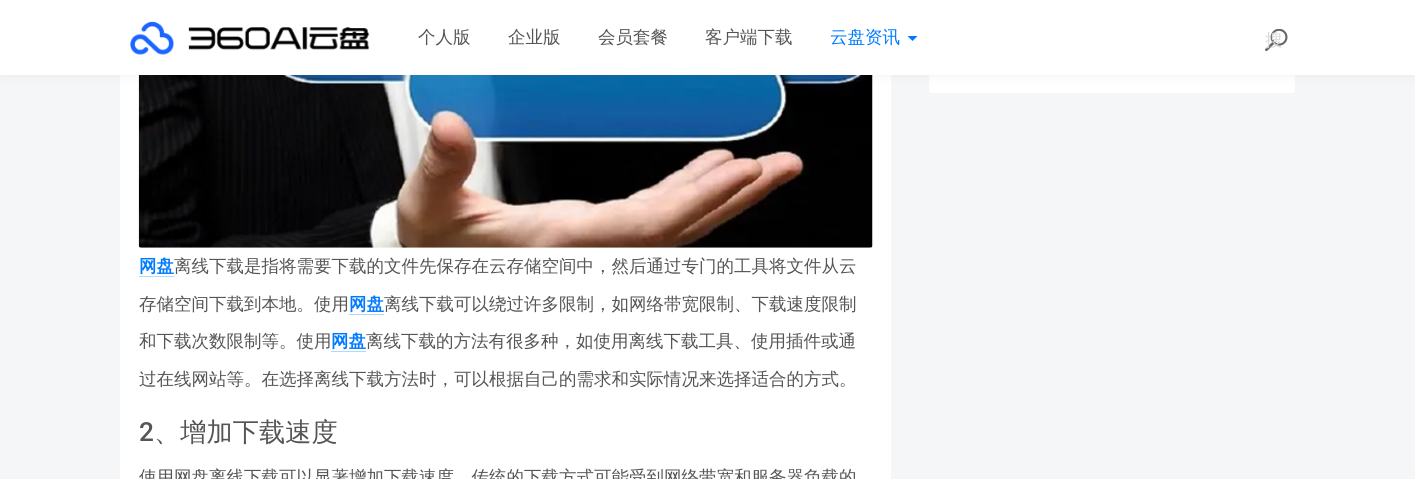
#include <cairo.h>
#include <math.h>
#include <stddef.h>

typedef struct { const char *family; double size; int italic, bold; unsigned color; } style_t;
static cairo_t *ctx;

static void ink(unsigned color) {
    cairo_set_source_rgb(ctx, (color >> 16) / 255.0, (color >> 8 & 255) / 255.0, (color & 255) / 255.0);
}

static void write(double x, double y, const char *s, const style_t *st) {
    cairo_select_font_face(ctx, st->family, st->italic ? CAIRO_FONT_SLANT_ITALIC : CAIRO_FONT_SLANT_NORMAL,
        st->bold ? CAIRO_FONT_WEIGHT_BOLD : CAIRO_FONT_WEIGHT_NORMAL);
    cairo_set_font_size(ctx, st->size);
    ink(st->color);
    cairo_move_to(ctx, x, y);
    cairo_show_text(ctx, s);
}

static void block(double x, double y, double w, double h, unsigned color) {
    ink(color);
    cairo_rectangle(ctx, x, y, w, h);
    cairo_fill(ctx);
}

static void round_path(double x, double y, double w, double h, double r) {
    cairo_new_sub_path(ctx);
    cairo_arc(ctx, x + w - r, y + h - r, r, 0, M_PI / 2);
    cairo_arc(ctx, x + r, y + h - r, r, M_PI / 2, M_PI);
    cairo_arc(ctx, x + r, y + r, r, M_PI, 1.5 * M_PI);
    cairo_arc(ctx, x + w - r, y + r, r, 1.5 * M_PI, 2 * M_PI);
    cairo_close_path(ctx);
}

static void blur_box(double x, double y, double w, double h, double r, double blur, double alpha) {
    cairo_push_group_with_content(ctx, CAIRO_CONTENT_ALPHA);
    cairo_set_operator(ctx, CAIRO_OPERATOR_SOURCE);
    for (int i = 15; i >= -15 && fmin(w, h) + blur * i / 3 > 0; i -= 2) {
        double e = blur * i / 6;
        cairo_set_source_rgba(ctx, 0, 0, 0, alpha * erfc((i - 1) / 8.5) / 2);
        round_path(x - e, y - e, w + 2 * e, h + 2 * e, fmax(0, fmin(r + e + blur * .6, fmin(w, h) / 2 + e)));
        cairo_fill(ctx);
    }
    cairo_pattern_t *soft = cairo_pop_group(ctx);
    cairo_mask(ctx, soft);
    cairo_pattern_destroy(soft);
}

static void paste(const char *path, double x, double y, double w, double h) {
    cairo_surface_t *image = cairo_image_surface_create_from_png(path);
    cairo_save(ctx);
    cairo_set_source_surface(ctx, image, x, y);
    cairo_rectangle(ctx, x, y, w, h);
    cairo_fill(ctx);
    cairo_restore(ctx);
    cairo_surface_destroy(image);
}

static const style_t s1 = {"WenQuanYi Zen Hei Medium", 17.5, 0, 0, 0x555555};
static const style_t s2 = {"WenQuanYi Zen Hei Medium", 17.5, 0, 0, 0x007bff};
static const style_t s3 = {"WenQuanYi Zen Hei Medium", 17.5, 0, 0, 0xd7d7d7};
static const style_t s4 = {"WenQuanYi Zen Hei", 17.5, 0, 1, 0x007bff};
static const style_t s5 = {"Roboto Medium", 26.25, 0, 0, 0x555555};
static const style_t s6 = {"WenQuanYi Zen Hei Medium", 26.25, 0, 0, 0x555555};

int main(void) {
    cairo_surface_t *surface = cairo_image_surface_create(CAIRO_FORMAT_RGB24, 1415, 479);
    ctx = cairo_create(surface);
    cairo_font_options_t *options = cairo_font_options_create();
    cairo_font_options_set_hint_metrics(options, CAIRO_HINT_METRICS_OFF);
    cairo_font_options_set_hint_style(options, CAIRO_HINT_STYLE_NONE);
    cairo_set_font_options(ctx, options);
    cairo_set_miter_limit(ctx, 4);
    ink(0xf4f6f8);
    cairo_paint(ctx);
    ink(0xffffff);
    round_path(929, -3, 366, 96, 2.5);
    cairo_fill(ctx);
    block(120, 75, 771, 404, 0xffffff);
    paste("pic3.png", 138, 75, 735, 173);
    ink(0x000000);
    blur_box(0, 1, 1415, 75, 0, 5, 0.05);
    block(0, 0, 1415, 75, 0xffffff);
    paste("pic1.png", 130, 21, 240, 34);
    write(418, 43, "个人版", &s1);
    write(508, 43, "企业版", &s1);
    write(598, 43, "会员套餐", &s1);
    write(705, 43, "客户端下载", &s1);
    write(830, 43, "云盘资讯", &s2);
    cairo_new_path(ctx);
    cairo_move_to(ctx, 907.5, 36);
    cairo_line_to(ctx, 917.5, 36);
    cairo_line_to(ctx, 912.5, 41);
    cairo_close_path(ctx);
    cairo_fill(ctx);
    paste("pic2.png", 1265, 29, 23, 22);
    write(1265, 46, "搜", &s3);
    write(139, 272, "网盘", &s4);
    block(139, 276, 35, 1, 0xb3d7ff);
    write(174, 272, "离线下载是指将需要下载的文件先保存在云存储空间中，然后通过专门的工具将文件从云", &s1);
    write(139, 310, "存储空间下载到本地。使用", &s1);
    write(349, 310, "网盘", &s4);
    block(349, 314, 35, 1, 0xb3d7ff);
    write(384, 310, "离线下载可以绕过许多限制，如网络带宽限制、下载速度限制", &s1);
    write(139, 347, "和下载次数限制等。使用", &s1);
    write(331, 347, "网盘", &s4);
    block(331, 351, 35, 1, 0xb3d7ff);
    write(366, 347, "离线下载的方法有很多种，如使用离线下载工具、使用插件或通", &s1);
    write(139, 385, "过在线网站等。在选择离线下载方法时，可以根据自己的需求和实际情况来选择适合的方式。", &s1);
    write(139, 441, "2", &s5);
    write(154, 441, "、增加下载速度", &s6);
    write(139, 483, "使用网盘离线下载可以显著增加下载速度。传统的下载方式可能受到网络带宽和服务器负载的", &s1);
    cairo_surface_write_to_png(surface, "screenshot.png");
    cairo_font_options_destroy(options);
    cairo_destroy(ctx);
    cairo_surface_destroy(surface);
    return 0;
}
